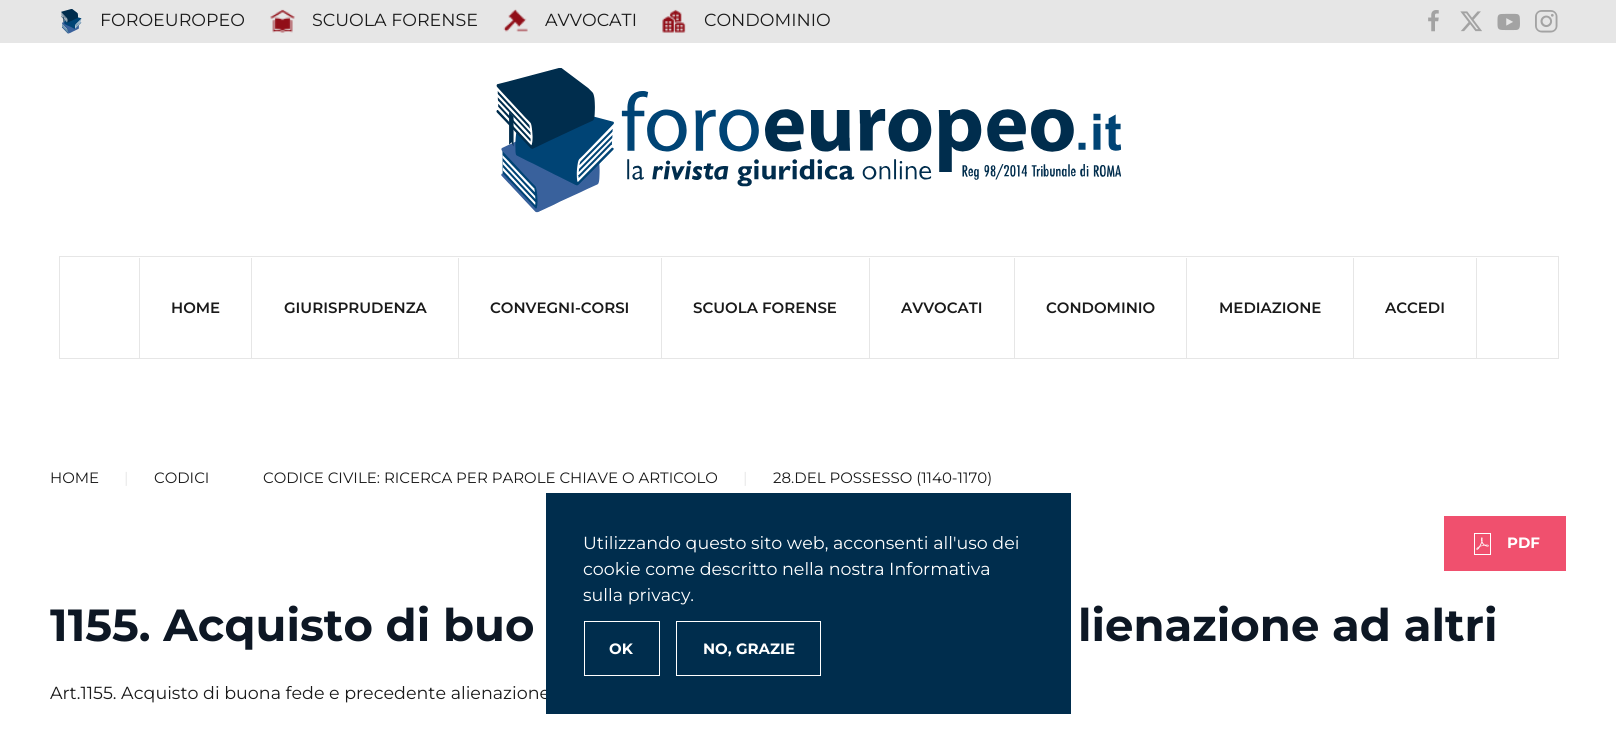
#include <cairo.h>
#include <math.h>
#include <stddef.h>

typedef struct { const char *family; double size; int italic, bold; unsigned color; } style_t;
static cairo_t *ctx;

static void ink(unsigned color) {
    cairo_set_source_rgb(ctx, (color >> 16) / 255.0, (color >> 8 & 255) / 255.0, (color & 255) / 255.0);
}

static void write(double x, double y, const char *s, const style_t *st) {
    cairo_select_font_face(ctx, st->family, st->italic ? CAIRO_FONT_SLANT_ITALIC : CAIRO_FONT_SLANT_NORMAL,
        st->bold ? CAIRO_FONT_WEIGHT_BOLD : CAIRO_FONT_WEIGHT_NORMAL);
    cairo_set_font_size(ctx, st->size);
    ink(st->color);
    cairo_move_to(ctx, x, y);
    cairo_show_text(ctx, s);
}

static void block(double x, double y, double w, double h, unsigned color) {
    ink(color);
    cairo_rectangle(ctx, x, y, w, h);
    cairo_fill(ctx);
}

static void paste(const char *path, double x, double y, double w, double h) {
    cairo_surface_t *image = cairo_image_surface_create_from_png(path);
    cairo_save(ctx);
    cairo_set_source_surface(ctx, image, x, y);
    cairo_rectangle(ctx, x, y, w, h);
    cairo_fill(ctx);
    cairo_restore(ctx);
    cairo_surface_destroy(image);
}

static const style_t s1 = {"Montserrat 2 Thin", 17.5, 0, 0, 0x1a1a1a};
static const style_t s2 = {"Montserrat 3 Thin", 15, 0, 0, 0x1a1a1a};
static const style_t s3 = {"Montserrat 2 Thin", 15, 0, 0, 0x1a1a1a};
static const style_t s4 = {"Montserrat 2 Thin", 15, 0, 0, 0xe6e6e6};
static const style_t s5 = {"Montserrat Thin", 15, 0, 0, 0xffffff};
static const style_t s6 = {"Montserrat Thin", 45, 0, 0, 0x0d1724};
static const style_t s7 = {"Montserrat 2 Thin", 17.5, 0, 0, 0xffffff};

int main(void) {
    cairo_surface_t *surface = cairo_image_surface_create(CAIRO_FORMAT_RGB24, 1616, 732);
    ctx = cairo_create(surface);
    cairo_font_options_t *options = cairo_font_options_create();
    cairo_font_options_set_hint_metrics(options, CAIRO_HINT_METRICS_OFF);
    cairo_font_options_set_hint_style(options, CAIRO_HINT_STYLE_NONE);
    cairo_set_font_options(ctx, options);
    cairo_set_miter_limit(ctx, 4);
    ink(0xffffff);
    cairo_paint(ctx);
    block(0, 0, 1616, 43, 0xe6e6e6);
    paste("pic1.png", 61, 9, 21, 25);
    write(100, 26, "FOROEUROPEO", &s1);
    paste("pic2.png", 270, 9, 25, 24);
    write(312, 26, "SCUOLA FORENSE", &s1);
    paste("pic3.png", 503, 9, 25, 23);
    write(545, 26, "AVVOCATI", &s1);
    paste("pic4.png", 662, 9, 24, 24);
    write(704, 26, "CONDOMINIO", &s1);
    paste("pic5.png", 1428, 10, 11, 22);
    paste("pic6.png", 1460, 11, 22, 21);
    paste("pic7.png", 1497, 13, 23, 18);
    paste("pic8.png", 1535, 10, 23, 23);
    paste("pic9.png", 496, 68, 625, 145);
    cairo_rectangle(ctx, 59.5, 256.5, 1499, 102);
    ink(0xe6e6e6);
    cairo_set_line_width(ctx, 1);
    cairo_stroke(ctx);
    block(1476, 258, 1, 100, 0xe6e6e6);
    block(139, 258, 1, 100, 0xe6e6e6);
    write(171, 313, "HOME", &s2);
    block(251, 258, 1, 100, 0xe6e6e6);
    write(284, 313, "GIURISPRUDENZA", &s2);
    block(458, 258, 1, 100, 0xe6e6e6);
    write(490, 313, "CONVEGNI-CORSI", &s2);
    block(661, 258, 1, 100, 0xe6e6e6);
    write(693, 313, "SCUOLA FORENSE", &s2);
    block(869, 258, 1, 100, 0xe6e6e6);
    write(901, 313, "AVVOCATI", &s2);
    block(1014, 258, 1, 100, 0xe6e6e6);
    write(1046, 313, "CONDOMINIO", &s2);
    block(1186, 258, 1, 100, 0xe6e6e6);
    write(1219, 313, "MEDIAZIONE", &s2);
    block(1353, 258, 1, 100, 0xe6e6e6);
    write(1385, 313, "ACCEDI", &s2);
    write(50, 483, "HOME", &s3);
    write(124, 483, "|", &s4);
    write(154, 483, "CODICI", &s3);
    write(263, 483, "CODICE CIVILE: RICERCA PER PAROLE CHIAVE O ARTICOLO", &s3);
    write(743, 483, "|", &s4);
    write(773, 483, "28.DEL POSSESSO (1140-1170)", &s3);
    block(1444, 516, 122, 55, 0xf0506e);
    paste("pic10.png", 1474, 533, 17, 22);
    write(1507, 548, "PDF", &s5);
    write(50, 641, "1155. Acquisto di buo", &s6);
    write(1078, 641, "lienazione ad altri", &s6);
    write(50, 699, "Art.1155. Acquisto di buona fede e precedente alienazione", &s1);
    block(546, 493, 525, 221, 0x002d4d);
    write(583, 549, "Utilizzando questo sito web, acconsenti all'uso dei", &s7);
    write(583, 575, "cookie come descritto nella nostra Informativa", &s7);
    write(583, 601, "sulla privacy.", &s7);
    cairo_rectangle(ctx, 584.5, 621.5, 75, 54);
    cairo_stroke(ctx);
    write(609, 654, "OK", &s5);
    cairo_rectangle(ctx, 676.5, 621.5, 144, 54);
    cairo_stroke(ctx);
    write(703, 654, "NO, GRAZIE", &s5);
    cairo_surface_write_to_png(surface, "screenshot.png");
    cairo_font_options_destroy(options);
    cairo_destroy(ctx);
    cairo_surface_destroy(surface);
    return 0;
}
